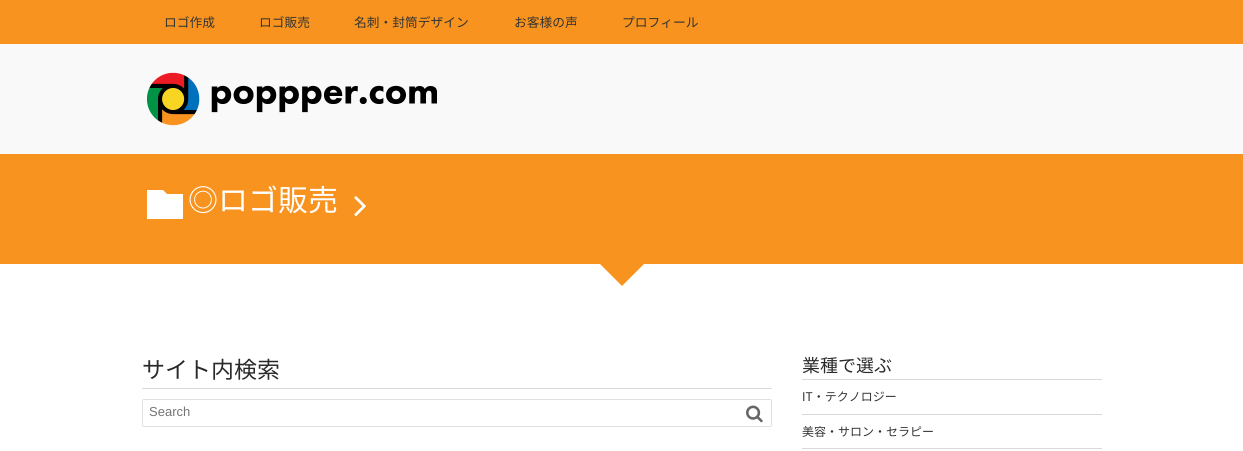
#include <cairo.h>
#include <math.h>
#include <stddef.h>

typedef struct { const char *family; double size; int italic, bold; unsigned color; } style_t;
static cairo_t *ctx;

static void ink(unsigned color) {
    cairo_set_source_rgb(ctx, (color >> 16) / 255.0, (color >> 8 & 255) / 255.0, (color & 255) / 255.0);
}

static void write(double x, double y, const char *s, const style_t *st) {
    cairo_select_font_face(ctx, st->family, st->italic ? CAIRO_FONT_SLANT_ITALIC : CAIRO_FONT_SLANT_NORMAL,
        st->bold ? CAIRO_FONT_WEIGHT_BOLD : CAIRO_FONT_WEIGHT_NORMAL);
    cairo_set_font_size(ctx, st->size);
    ink(st->color);
    cairo_move_to(ctx, x, y);
    cairo_show_text(ctx, s);
}

static void block(double x, double y, double w, double h, unsigned color) {
    ink(color);
    cairo_rectangle(ctx, x, y, w, h);
    cairo_fill(ctx);
}

static void round_path(double x, double y, double w, double h, double r) {
    cairo_new_sub_path(ctx);
    cairo_arc(ctx, x + w - r, y + h - r, r, 0, M_PI / 2);
    cairo_arc(ctx, x + r, y + h - r, r, M_PI / 2, M_PI);
    cairo_arc(ctx, x + r, y + r, r, M_PI, 1.5 * M_PI);
    cairo_arc(ctx, x + w - r, y + r, r, 1.5 * M_PI, 2 * M_PI);
    cairo_close_path(ctx);
}

static void paste(const char *path, double x, double y, double w, double h) {
    cairo_surface_t *image = cairo_image_surface_create_from_png(path);
    cairo_save(ctx);
    cairo_set_source_surface(ctx, image, x, y);
    cairo_rectangle(ctx, x, y, w, h);
    cairo_fill(ctx);
    cairo_restore(ctx);
    cairo_surface_destroy(image);
}

static const style_t s1 = {"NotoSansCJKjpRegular", 12.75, 0, 0, 0x333333};
static const style_t s2 = {"NotoSansCJKjpRegular", 30, 0, 0, 0xffffff};
static const style_t s3 = {"NotoSansCJKjpRegular", 23, 0, 0, 0x2a2a2a};
static const style_t s4 = {"Liberation Sans", 13, 0, 0, 0x757575};
static const style_t s5 = {"NotoSansCJKjpRegular", 18, 0, 0, 0x2a2a2a};
static const style_t s6 = {"NotoSansCJKjpRegular", 12, 0, 0, 0x333333};

int main(void) {
    cairo_surface_t *surface = cairo_image_surface_create(CAIRO_FORMAT_RGB24, 1243, 451);
    ctx = cairo_create(surface);
    cairo_font_options_t *options = cairo_font_options_create();
    cairo_font_options_set_hint_metrics(options, CAIRO_HINT_METRICS_OFF);
    cairo_font_options_set_hint_style(options, CAIRO_HINT_STYLE_NONE);
    cairo_set_font_options(ctx, options);
    cairo_set_miter_limit(ctx, 4);
    ink(0xffffff);
    cairo_paint(ctx);
    block(0, 44, 1243, 110, 0xf9f9f9);
    block(0, 0, 1243, 44, 0xf7931e);
    write(164, 27, "ロゴ作成", &s1);
    write(259, 27, "ロゴ販売", &s1);
    write(354, 27, "名刺・封筒デザイン", &s1);
    write(514, 27, "お客様の声", &s1);
    write(622, 27, "プロフィール", &s1);
    paste("pic1.png", 146, 72, 291, 54);
    block(0, 154, 1243, 110, 0xf7931e);
    write(188, 211, "◎ロゴ販売", &s2);
    cairo_new_path(ctx);
    cairo_move_to(ctx, 163, 190);
    cairo_line_to(ctx, 167, 194);
    cairo_line_to(ctx, 183, 194);
    cairo_line_to(ctx, 183, 219);
    cairo_line_to(ctx, 147, 219);
    cairo_line_to(ctx, 147, 190);
    cairo_close_path(ctx);
    cairo_fill(ctx);
    paste("pic2.png", 354, 196, 12, 21);
    ink(0xf7931e);
    cairo_new_path(ctx);
    cairo_move_to(ctx, 600, 264);
    cairo_line_to(ctx, 644, 264);
    cairo_line_to(ctx, 622, 286);
    cairo_close_path(ctx);
    cairo_fill(ctx);
    block(142, 388, 630, 1, 0xdadada);
    write(142, 378, "サイト内検索", &s3);
    round_path(142.5, 399.5, 629, 27, 1.5);
    ink(0xe0e0e0);
    cairo_set_line_width(ctx, 1);
    cairo_stroke(ctx);
    write(149, 416, "Search", &s4);
    paste("pic3.png", 746, 405, 17, 18);
    block(802, 379, 300, 1, 0xdadada);
    write(802, 372, "業種で選ぶ", &s5);
    block(802, 414, 300, 1, 0xdadada);
    write(802, 401, "IT・テクノロジー", &s6);
    block(802, 448, 300, 1, 0xdadada);
    write(802, 436, "美容・サロン・セラピー", &s6);
    cairo_surface_write_to_png(surface, "screenshot.png");
    cairo_font_options_destroy(options);
    cairo_destroy(ctx);
    cairo_surface_destroy(surface);
    return 0;
}
